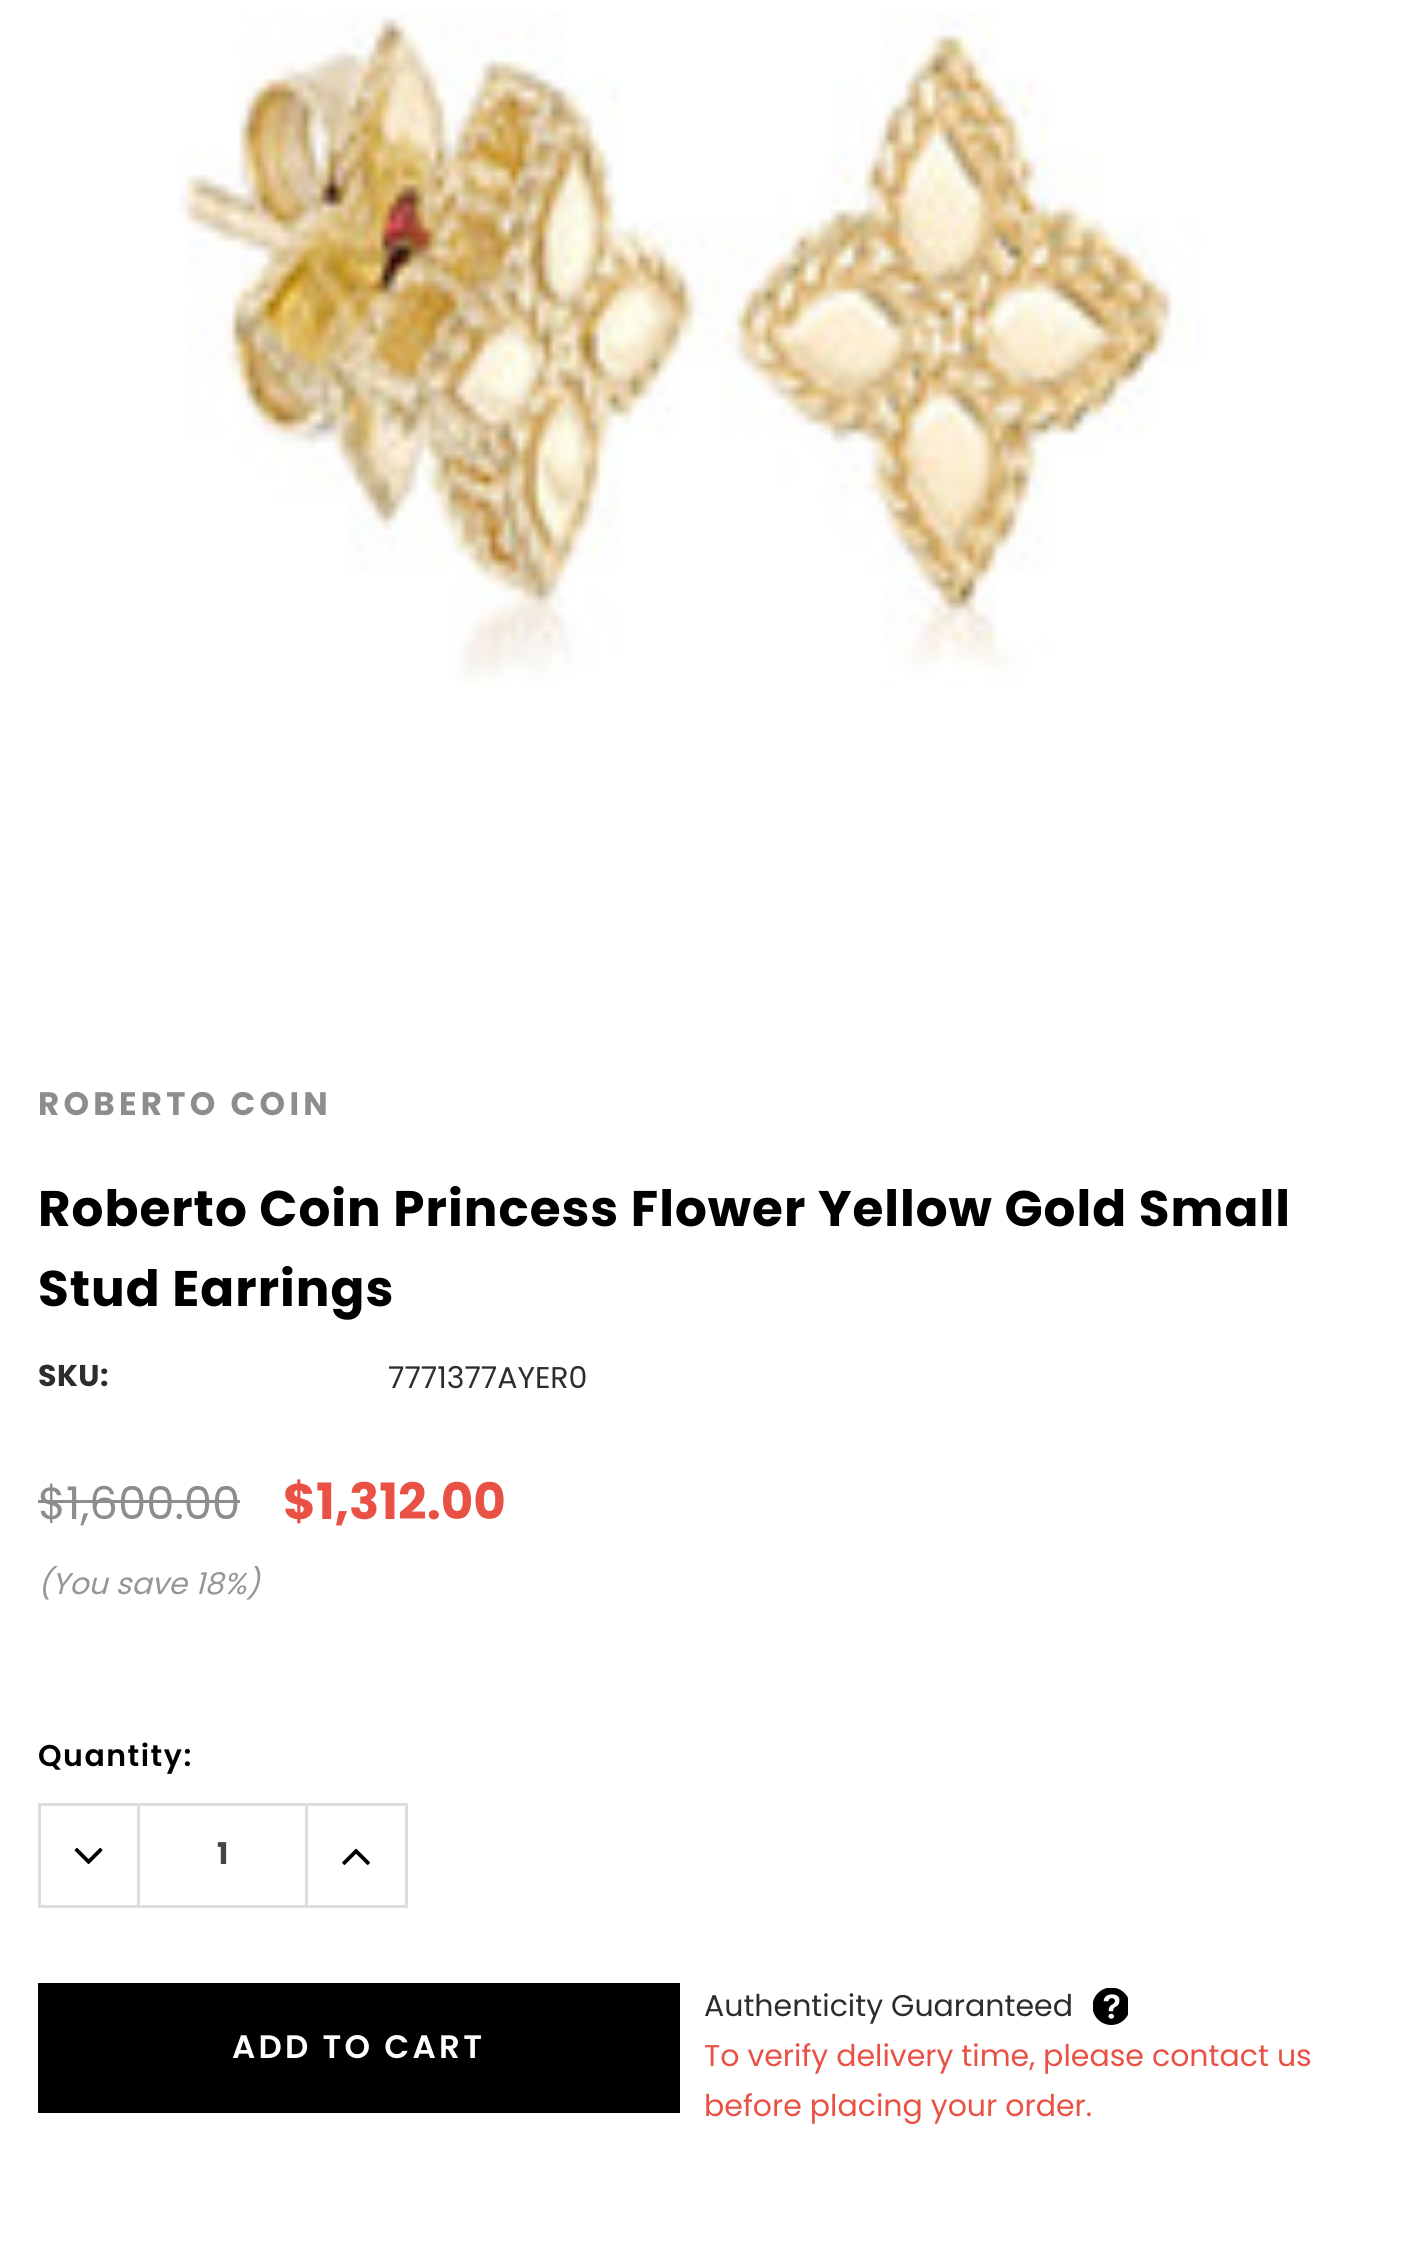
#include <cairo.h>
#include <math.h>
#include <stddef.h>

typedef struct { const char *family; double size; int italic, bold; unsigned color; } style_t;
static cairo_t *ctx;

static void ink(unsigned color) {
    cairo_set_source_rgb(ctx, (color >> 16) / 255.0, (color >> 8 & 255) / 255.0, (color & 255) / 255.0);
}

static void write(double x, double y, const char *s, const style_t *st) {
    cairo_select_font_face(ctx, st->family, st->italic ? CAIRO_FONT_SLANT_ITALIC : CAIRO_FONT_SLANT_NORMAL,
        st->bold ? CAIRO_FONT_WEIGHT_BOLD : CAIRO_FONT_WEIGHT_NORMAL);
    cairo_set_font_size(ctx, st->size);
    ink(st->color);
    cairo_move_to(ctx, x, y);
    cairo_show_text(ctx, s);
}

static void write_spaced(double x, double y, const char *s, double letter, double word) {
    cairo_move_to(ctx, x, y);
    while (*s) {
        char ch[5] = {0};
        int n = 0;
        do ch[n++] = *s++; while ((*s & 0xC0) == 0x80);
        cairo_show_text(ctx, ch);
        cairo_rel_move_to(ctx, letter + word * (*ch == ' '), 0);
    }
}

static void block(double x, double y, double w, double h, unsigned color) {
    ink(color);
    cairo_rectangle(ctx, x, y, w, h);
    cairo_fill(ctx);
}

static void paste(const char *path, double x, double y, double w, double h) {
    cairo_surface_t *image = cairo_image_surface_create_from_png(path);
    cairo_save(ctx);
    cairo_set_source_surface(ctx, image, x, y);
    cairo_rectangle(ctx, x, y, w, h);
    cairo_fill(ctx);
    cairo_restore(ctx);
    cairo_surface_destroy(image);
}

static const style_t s1 = {"Poppins", 30, 0, 0, 0x2d2d2d};
static const style_t s2 = {"Poppins", 45, 0, 0, 0x8d8d8d};
static const style_t s3 = {"Poppins", 50, 0, 1, 0xe95144};
static const style_t s4 = {"Poppins", 30, 1, 0, 0x969696};
static const style_t s5 = {"Poppins", 30, 0, 1, 0x454545};
static const style_t s6 = {"Poppins", 30, 0, 0, 0xe95144};

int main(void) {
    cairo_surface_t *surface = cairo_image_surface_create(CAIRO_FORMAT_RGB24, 1406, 2250);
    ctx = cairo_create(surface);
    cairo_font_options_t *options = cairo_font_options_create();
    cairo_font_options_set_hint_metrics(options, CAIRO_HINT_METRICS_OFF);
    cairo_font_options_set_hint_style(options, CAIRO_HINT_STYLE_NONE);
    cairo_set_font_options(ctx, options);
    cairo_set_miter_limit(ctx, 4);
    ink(0xffffff);
    cairo_paint(ctx);
    paste("pic1.png", 179, 10, 1022, 677);
    cairo_select_font_face(ctx, "Poppins", CAIRO_FONT_SLANT_NORMAL, CAIRO_FONT_WEIGHT_BOLD);
    cairo_set_font_size(ctx, 32.5);
    ink(0x8d8d8d);
    write_spaced(38, 1115, "ROBERTO COIN", 4.25, 0);
    cairo_set_font_size(ctx, 50);
    ink(0x000000);
    write_spaced(38, 1226, "Roberto Coin Princess Flower Yellow Gold Small", 1, 0);
    write_spaced(38, 1306, "Stud Earrings", 1, 0);
    cairo_set_font_size(ctx, 30);
    ink(0x2d2d2d);
    write_spaced(38, 1386, "SKU:", 0.5, 0);
    write(388, 1388, "7771377AYER0", &s1);
    write(38, 1519, "$1,600.00", &s2);
    block(38, 1500, 202, 3, 0x8d8d8d);
    write(283, 1519, "$1,312.00", &s3);
    write(38, 1594, "(You save 18%)", &s4);
    cairo_select_font_face(ctx, "Poppins SemiBold", CAIRO_FONT_SLANT_NORMAL, CAIRO_FONT_WEIGHT_NORMAL);
    ink(0x000000);
    write_spaced(38, 1766, "Quantity:", 1.5, 0);
    block(138, 1803, 170, 3, 0xdedede);
    block(138, 1905, 170, 3, 0xdedede);
    cairo_rectangle(ctx, 39.5, 1804.5, 99, 102);
    cairo_set_line_width(ctx, 3);
    cairo_stroke(ctx);
    paste("pic2.png", 74, 1847, 29, 18);
    write(217, 1864, "1", &s5);
    cairo_rectangle(ctx, 306.5, 1804.5, 100, 102);
    ink(0xdedede);
    cairo_stroke(ctx);
    paste("pic3.png", 342, 1848, 28, 17);
    block(38, 1983, 642, 130, 0x000000);
    cairo_select_font_face(ctx, "Poppins SemiBold", CAIRO_FONT_SLANT_NORMAL, CAIRO_FONT_WEIGHT_NORMAL);
    cairo_set_font_size(ctx, 32.5);
    ink(0xffffff);
    write_spaced(232, 2058, "ADD TO CART", 3.25, 0);
    write(704, 2016, "Authenticity Guaranteed", &s1);
    paste("pic4.png", 1093, 1988, 35, 37);
    write(704, 2066, "To verify delivery time, please contact us", &s6);
    write(704, 2116, "before placing your order.", &s6);
    cairo_surface_write_to_png(surface, "screenshot.png");
    cairo_font_options_destroy(options);
    cairo_destroy(ctx);
    cairo_surface_destroy(surface);
    return 0;
}
